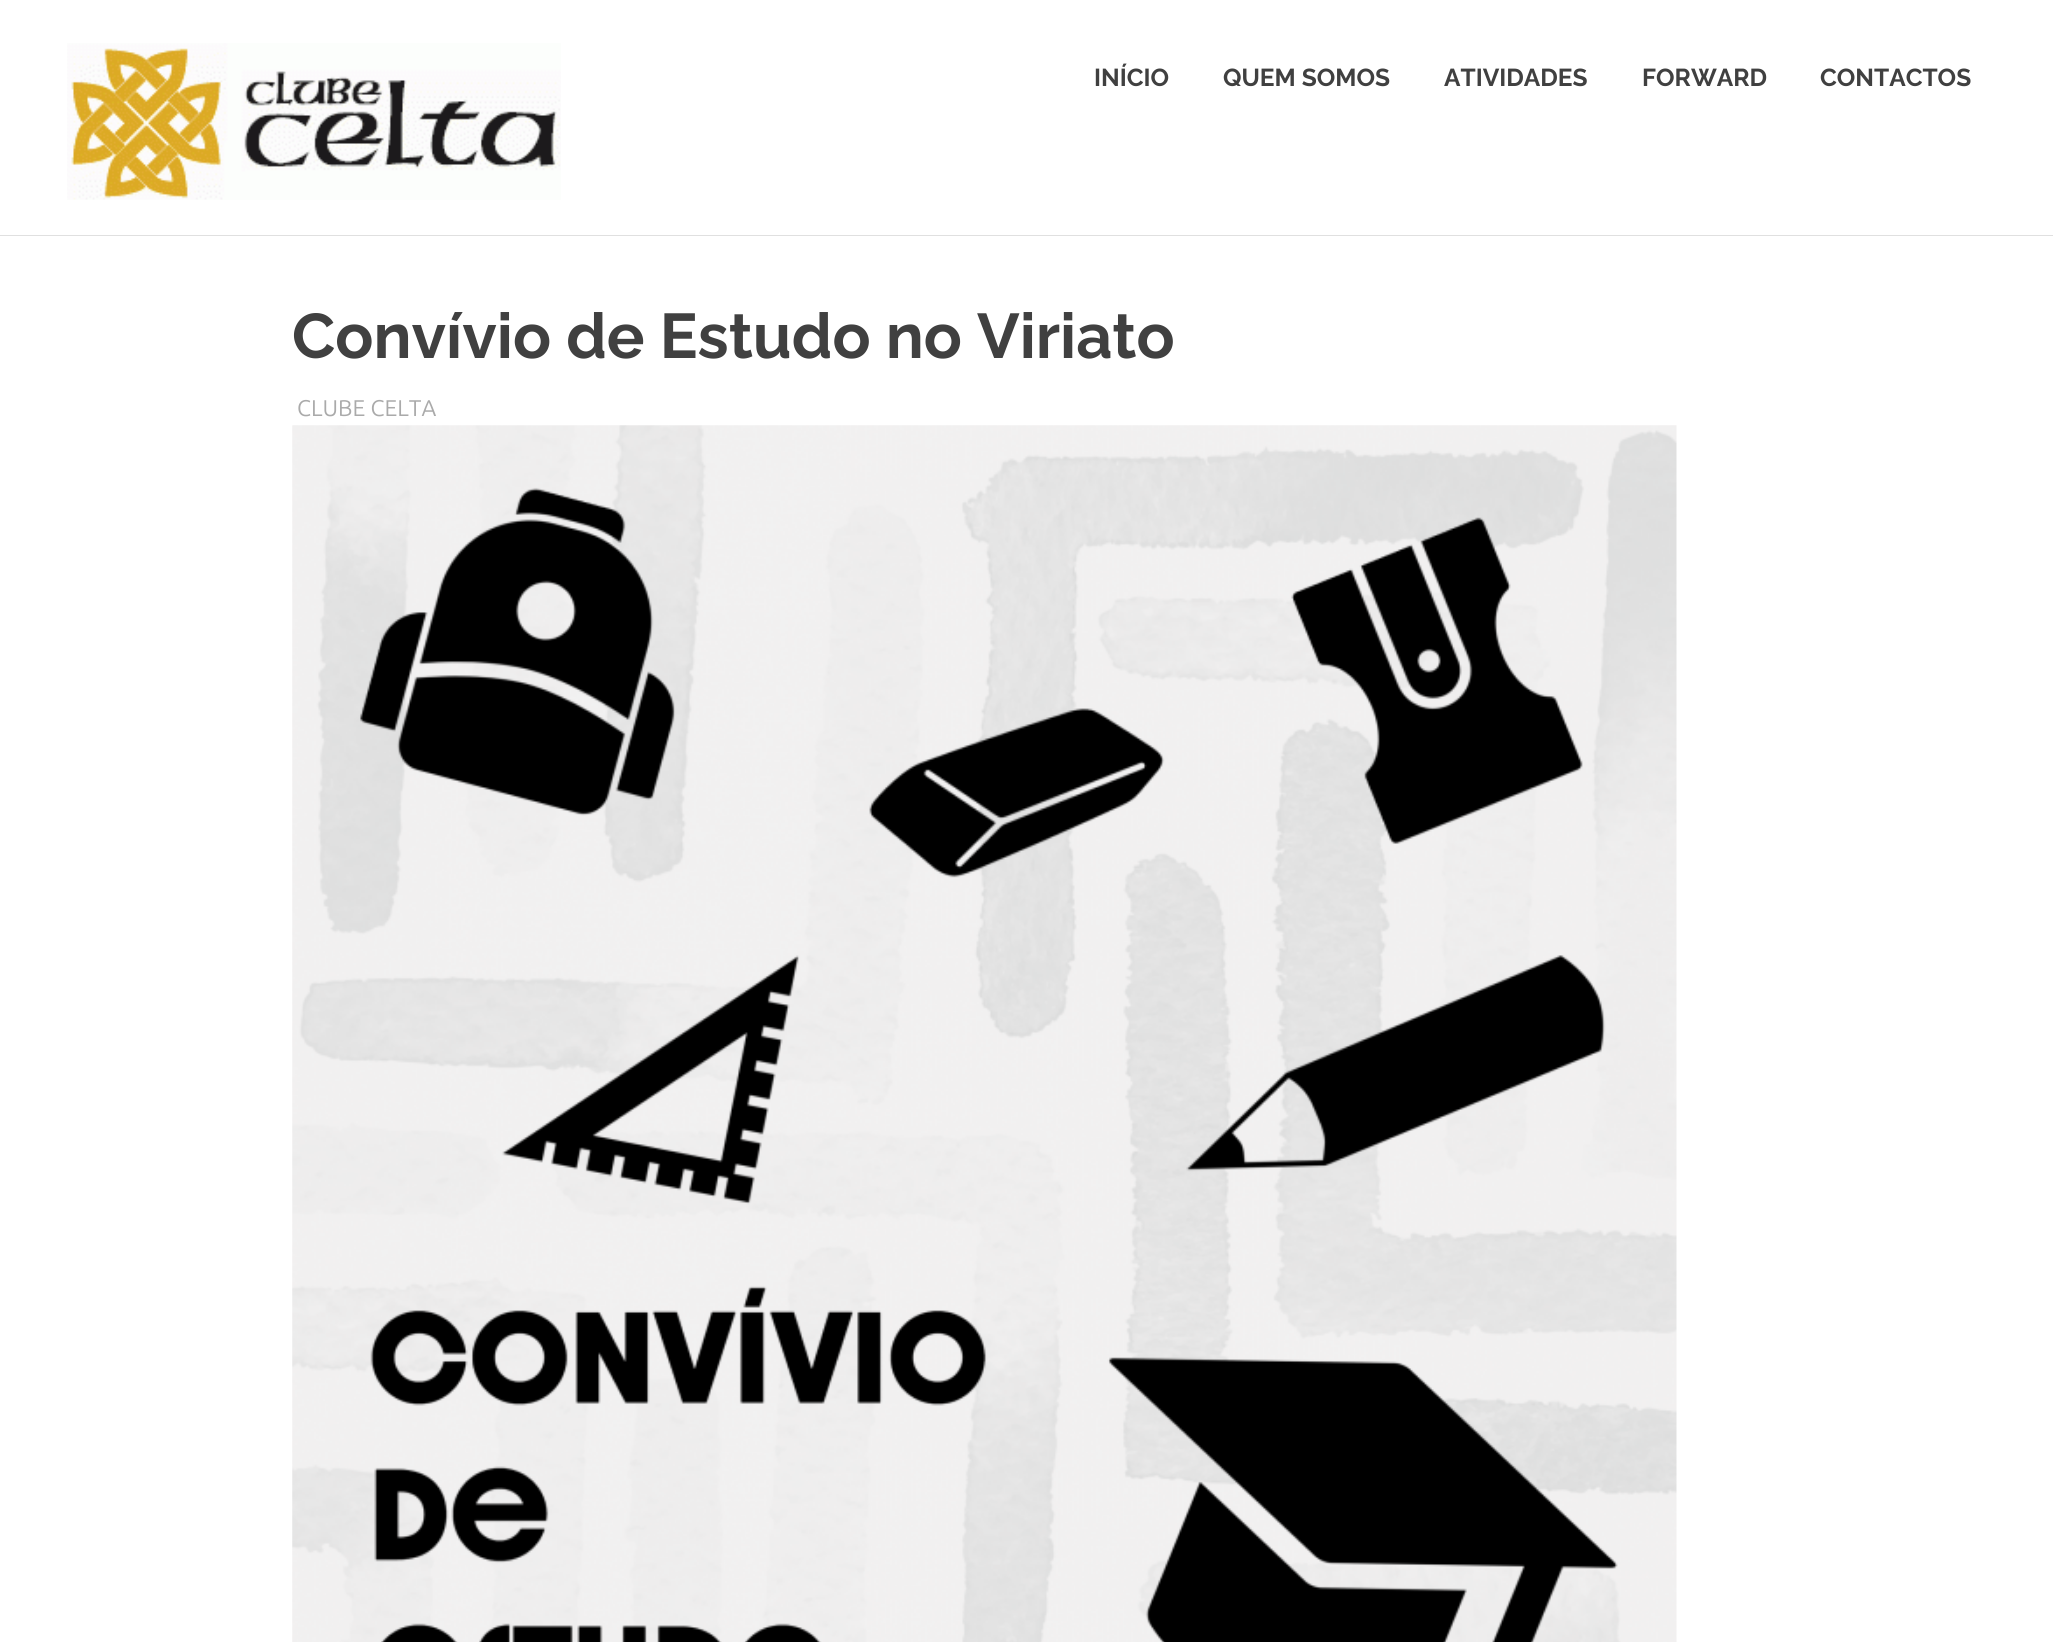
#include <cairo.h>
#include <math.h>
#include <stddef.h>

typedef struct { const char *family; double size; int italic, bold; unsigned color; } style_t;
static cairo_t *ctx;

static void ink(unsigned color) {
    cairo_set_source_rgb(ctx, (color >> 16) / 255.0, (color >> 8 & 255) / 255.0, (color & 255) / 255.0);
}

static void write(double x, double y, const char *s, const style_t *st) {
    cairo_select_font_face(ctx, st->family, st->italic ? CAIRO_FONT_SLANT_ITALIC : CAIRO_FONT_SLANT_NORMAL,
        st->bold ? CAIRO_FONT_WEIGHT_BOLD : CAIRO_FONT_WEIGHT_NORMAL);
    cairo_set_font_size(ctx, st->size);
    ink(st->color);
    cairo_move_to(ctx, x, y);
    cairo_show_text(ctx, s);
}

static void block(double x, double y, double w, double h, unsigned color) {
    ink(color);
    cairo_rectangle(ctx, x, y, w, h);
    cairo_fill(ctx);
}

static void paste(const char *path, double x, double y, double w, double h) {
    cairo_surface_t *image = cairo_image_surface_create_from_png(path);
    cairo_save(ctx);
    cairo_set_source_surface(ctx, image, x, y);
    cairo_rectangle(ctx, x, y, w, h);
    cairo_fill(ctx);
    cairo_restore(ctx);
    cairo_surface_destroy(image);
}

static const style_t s1 = {"Raleway", 24.5, 0, 1, 0x404040};
static const style_t s2 = {"Raleway", 63, 0, 1, 0x404040};
static const style_t s3 = {"Ubuntu", 22.75, 0, 0, 0xaaaaaa};

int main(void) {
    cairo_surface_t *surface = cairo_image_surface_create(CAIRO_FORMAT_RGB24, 2053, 1642);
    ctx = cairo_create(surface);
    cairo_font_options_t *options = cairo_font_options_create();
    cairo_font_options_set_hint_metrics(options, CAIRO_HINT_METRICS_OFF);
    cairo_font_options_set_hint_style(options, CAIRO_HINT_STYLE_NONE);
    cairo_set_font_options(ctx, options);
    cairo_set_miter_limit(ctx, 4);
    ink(0xffffff);
    cairo_paint(ctx);
    block(0, 235, 2053, 1, 0xe0e0e0);
    paste("pic1.png", 67, 43, 494, 157);
    write(1094, 86, "INÍCIO", &s1);
    write(1223, 86, "QUEM SOMOS", &s1);
    write(1444, 86, "ATIVIDADES", &s1);
    write(1642, 86, "FORWARD", &s1);
    write(1820, 86, "CONTACTOS", &s1);
    write(292, 358, "Convívio de Estudo no Viriato", &s2);
    write(297, 416, "CLUBE CELTA", &s3);
    paste("pic2.png", 292, 425, 1385, 1217);
    cairo_surface_write_to_png(surface, "screenshot.png");
    cairo_font_options_destroy(options);
    cairo_destroy(ctx);
    cairo_surface_destroy(surface);
    return 0;
}
